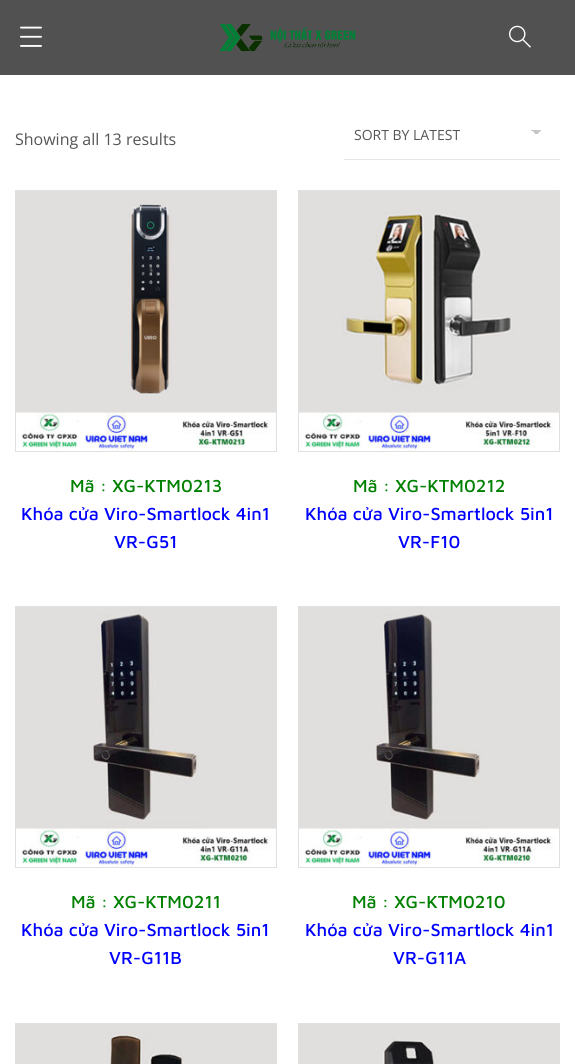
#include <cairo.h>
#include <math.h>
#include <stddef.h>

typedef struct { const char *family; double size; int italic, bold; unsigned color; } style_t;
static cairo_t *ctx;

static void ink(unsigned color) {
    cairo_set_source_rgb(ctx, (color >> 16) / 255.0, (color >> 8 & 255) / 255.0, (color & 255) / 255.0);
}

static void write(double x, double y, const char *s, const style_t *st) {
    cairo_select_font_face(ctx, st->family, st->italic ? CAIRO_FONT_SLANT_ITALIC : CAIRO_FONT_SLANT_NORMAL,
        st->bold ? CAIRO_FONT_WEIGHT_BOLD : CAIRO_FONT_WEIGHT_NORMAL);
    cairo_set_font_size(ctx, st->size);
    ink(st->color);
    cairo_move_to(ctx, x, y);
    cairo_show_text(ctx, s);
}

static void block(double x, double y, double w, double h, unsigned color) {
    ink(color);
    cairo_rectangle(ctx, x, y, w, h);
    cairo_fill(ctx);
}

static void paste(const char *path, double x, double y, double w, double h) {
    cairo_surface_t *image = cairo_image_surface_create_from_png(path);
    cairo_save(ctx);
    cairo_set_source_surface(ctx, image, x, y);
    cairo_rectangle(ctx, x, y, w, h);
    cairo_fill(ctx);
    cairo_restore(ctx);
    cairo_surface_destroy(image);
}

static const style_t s1 = {"Open Sans", 16, 0, 0, 0x555555};
static const style_t s2 = {"Open Sans", 14, 0, 0, 0x555555};
static const style_t s3 = {"Maven Pro Medium", 18, 0, 0, 0x008000};
static const style_t s4 = {"Maven Pro Medium", 18, 0, 0, 0x0000ff};

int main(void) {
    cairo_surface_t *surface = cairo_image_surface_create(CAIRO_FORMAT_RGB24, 575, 1064);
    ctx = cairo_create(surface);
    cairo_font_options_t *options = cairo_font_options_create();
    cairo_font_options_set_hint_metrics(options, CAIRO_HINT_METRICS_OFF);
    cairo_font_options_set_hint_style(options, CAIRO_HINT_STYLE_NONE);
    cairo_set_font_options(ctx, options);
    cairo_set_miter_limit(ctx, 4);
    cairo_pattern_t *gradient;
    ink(0xffffff);
    cairo_paint(ctx);
    block(0, 0, 575, 75, 0x515151);
    paste("pic1.png", 20, 26, 22, 21);
    paste("pic2.png", 219, 24, 137, 28);
    paste("pic3.png", 509, 25, 22, 23);
    write(15, 145, "Showing all 13 results", &s1);
    gradient = cairo_pattern_create_linear(536, 130, 541, 135);
    cairo_pattern_add_color_stop_rgba(gradient, 0.5, 0.765, 0.78, 0.788, 1);
    cairo_pattern_add_color_stop_rgba(gradient, 0.5, 1, 1, 1, 1);
    cairo_set_source(ctx, gradient);
    cairo_pattern_destroy(gradient);
    cairo_rectangle(ctx, 536, 130, 5, 4);
    cairo_fill(ctx);
    gradient = cairo_pattern_create_linear(531, 135, 536, 130);
    cairo_pattern_add_color_stop_rgba(gradient, 0.5, 1, 1, 1, 1);
    cairo_pattern_add_color_stop_rgba(gradient, 0.5, 0.765, 0.78, 0.788, 1);
    cairo_set_source(ctx, gradient);
    cairo_pattern_destroy(gradient);
    cairo_rectangle(ctx, 531, 130, 5, 4);
    cairo_fill(ctx);
    block(344, 159, 216, 1, 0xe6e6e6);
    write(354, 140, "SORT BY LATEST", &s2);
    cairo_rectangle(ctx, 15.5, 190.5, 261, 261);
    ink(0xe0e0e0);
    cairo_set_line_width(ctx, 1);
    cairo_stroke(ctx);
    paste("pic4.png", 16, 191, 260, 260);
    write(70, 492, "Mã : XG-KTM0213", &s3);
    write(21, 520, "Khóa cửa Viro-Smartlock 4in1", &s4);
    write(114, 548, "VR-G51", &s4);
    cairo_rectangle(ctx, 298.5, 190.5, 261, 261);
    ink(0xe0e0e0);
    cairo_stroke(ctx);
    paste("pic5.png", 299, 191, 260, 260);
    write(353, 492, "Mã : XG-KTM0212", &s3);
    write(305, 520, "Khóa cửa Viro-Smartlock 5in1", &s4);
    write(398, 548, "VR-F10", &s4);
    cairo_rectangle(ctx, 15.5, 606.5, 261, 261);
    ink(0xe0e0e0);
    cairo_stroke(ctx);
    paste("pic6.png", 16, 607, 260, 260);
    write(71, 908, "Mã : XG-KTM0211", &s3);
    write(21, 936, "Khóa cửa Viro-Smartlock 5in1", &s4);
    write(109, 964, "VR-G11B", &s4);
    cairo_rectangle(ctx, 298.5, 606.5, 261, 261);
    ink(0xe0e0e0);
    cairo_stroke(ctx);
    paste("pic7.png", 299, 607, 260, 260);
    write(352, 908, "Mã : XG-KTM0210", &s3);
    write(305, 936, "Khóa cửa Viro-Smartlock 4in1", &s4);
    write(393, 964, "VR-G11A", &s4);
    cairo_rectangle(ctx, 15.5, 1023.5, 261, 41);
    ink(0xe0e0e0);
    cairo_stroke(ctx);
    paste("pic8.png", 16, 1024, 260, 40);
    cairo_rectangle(ctx, 298.5, 1023.5, 261, 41);
    cairo_stroke(ctx);
    paste("pic9.png", 299, 1024, 260, 40);
    cairo_surface_write_to_png(surface, "screenshot.png");
    cairo_font_options_destroy(options);
    cairo_destroy(ctx);
    cairo_surface_destroy(surface);
    return 0;
}
